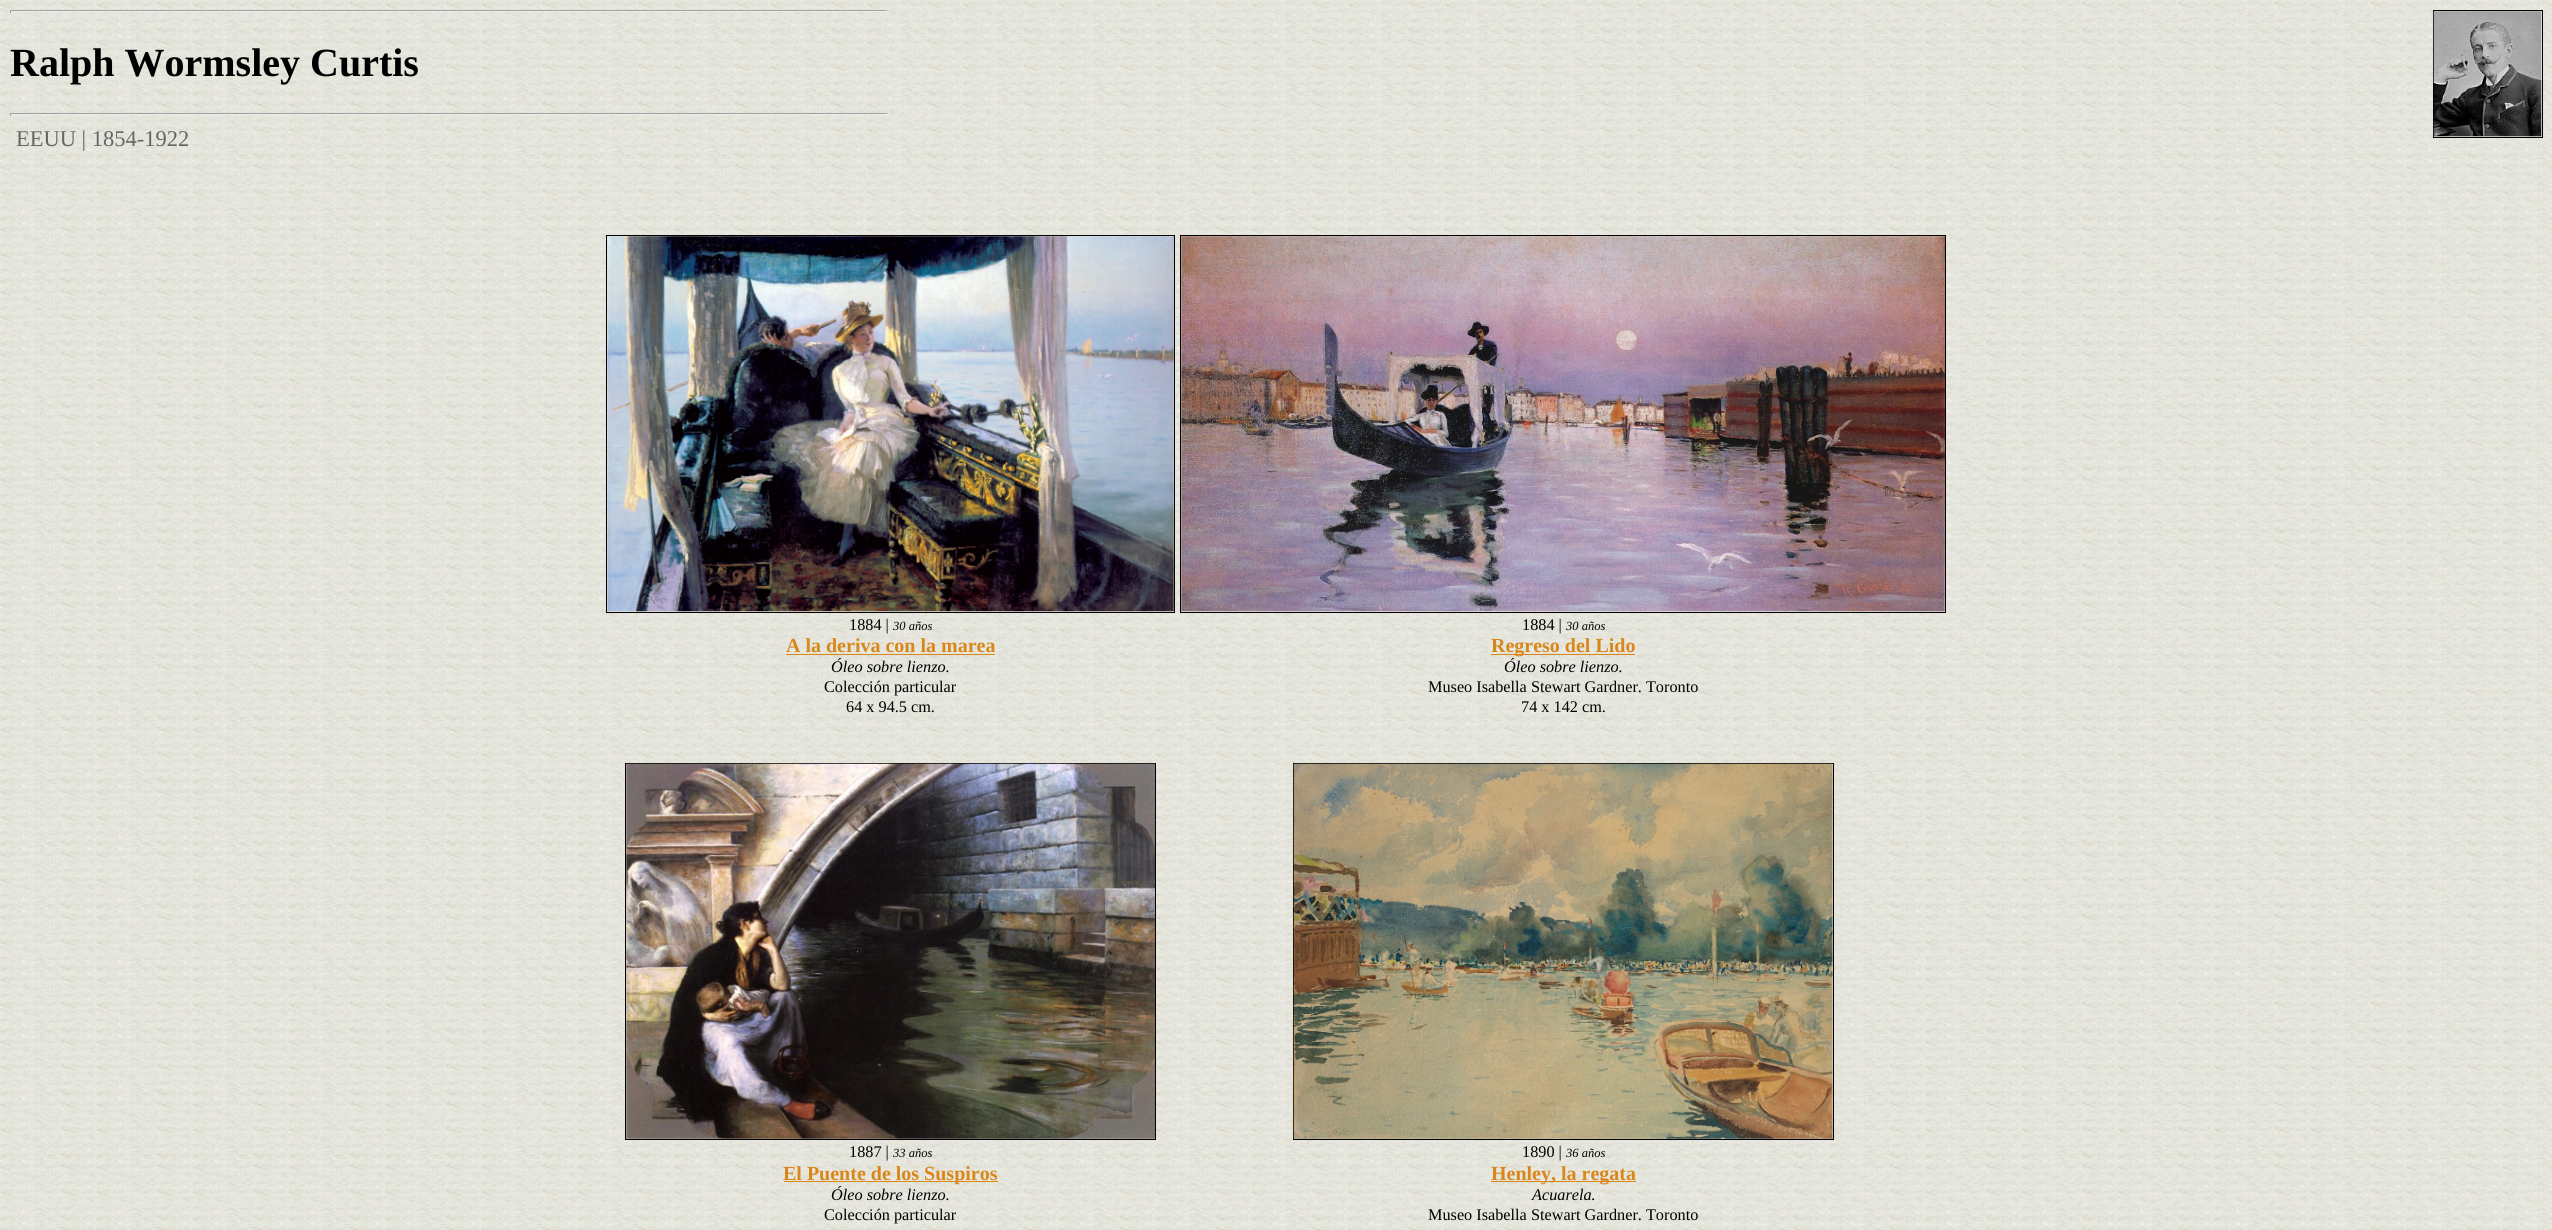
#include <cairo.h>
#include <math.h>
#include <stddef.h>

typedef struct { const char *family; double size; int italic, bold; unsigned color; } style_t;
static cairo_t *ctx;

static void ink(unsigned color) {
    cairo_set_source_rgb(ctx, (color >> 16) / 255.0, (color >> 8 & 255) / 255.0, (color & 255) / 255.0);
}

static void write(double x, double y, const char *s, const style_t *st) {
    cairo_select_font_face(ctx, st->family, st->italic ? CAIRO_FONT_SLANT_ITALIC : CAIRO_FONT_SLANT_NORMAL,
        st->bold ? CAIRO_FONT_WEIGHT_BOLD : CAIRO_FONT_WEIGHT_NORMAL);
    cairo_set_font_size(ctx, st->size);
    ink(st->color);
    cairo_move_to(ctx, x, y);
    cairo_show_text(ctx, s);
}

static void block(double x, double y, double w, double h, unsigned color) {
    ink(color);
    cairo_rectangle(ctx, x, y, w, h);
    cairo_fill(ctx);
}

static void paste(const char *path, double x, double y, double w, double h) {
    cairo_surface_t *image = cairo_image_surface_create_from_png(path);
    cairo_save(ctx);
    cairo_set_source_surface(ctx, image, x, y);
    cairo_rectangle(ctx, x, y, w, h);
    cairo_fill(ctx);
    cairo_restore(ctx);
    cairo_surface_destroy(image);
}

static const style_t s1 = {"Liberation Serif", 40, 0, 1, 0x000000};
static const style_t s2 = {"Liberation Serif", 22.5, 0, 0, 0x666666};
static const style_t s3 = {"Liberation Serif", 16.25, 0, 0, 0x000000};
static const style_t s4 = {"Liberation Serif", 12.5, 1, 0, 0x000000};
static const style_t s5 = {"Liberation Serif", 20, 0, 1, 0xd98719};
static const style_t s6 = {"Liberation Serif", 16.25, 1, 0, 0x000000};

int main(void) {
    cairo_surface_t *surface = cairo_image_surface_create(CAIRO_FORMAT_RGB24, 2552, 1230);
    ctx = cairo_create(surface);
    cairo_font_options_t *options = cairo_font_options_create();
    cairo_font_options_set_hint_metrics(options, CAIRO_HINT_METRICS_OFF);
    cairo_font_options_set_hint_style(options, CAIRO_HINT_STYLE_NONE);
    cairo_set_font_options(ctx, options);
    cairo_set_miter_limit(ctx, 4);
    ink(0xffffff);
    cairo_paint(ctx);
    paste("pic1.png", 0, 0, 2552, 1230);
    block(10, 10, 878, 1, 0x9f9f9f);
    block(886, 10, 1, 3, 0xeeeeee);
    block(10, 11, 878, 1, 0xeeeeee);
    block(10, 10, 1, 3, 0x9f9f9f);
    cairo_rectangle(ctx, 2433.5, 10.5, 109, 127);
    ink(0x000000);
    cairo_set_line_width(ctx, 1);
    cairo_stroke(ctx);
    paste("pic2.png", 2433, 11, 109, 126);
    write(10, 76, "Ralph Wormsley Curtis", &s1);
    block(10, 113, 878, 1, 0x9f9f9f);
    block(886, 113, 1, 3, 0xeeeeee);
    block(10, 114, 878, 1, 0xeeeeee);
    block(10, 113, 1, 3, 0x9f9f9f);
    write(16, 146, "EEUU | 1854-1922", &s2);
    cairo_rectangle(ctx, 606.5, 235.5, 568, 377);
    ink(0x000000);
    cairo_stroke(ctx);
    paste("pic3.png", 607, 236, 567, 376);
    write(849, 630, "1884 |", &s3);
    write(893, 630, "30 años", &s4);
    write(786, 652, "A la deriva con la marea", &s5);
    block(786, 654, 209, 1, 0xd98719);
    write(831, 672, "Óleo sobre lienzo.", &s6);
    write(824, 692, "Colección particular", &s3);
    write(846, 712, "64 x 94.5 cm.", &s3);
    cairo_rectangle(ctx, 1180.5, 235.5, 765, 377);
    cairo_stroke(ctx);
    paste("pic4.png", 1181, 236, 764, 376);
    write(1522, 630, "1884 |", &s3);
    write(1566, 630, "30 años", &s4);
    block(1491, 654, 144, 1, 0xd98719);
    write(1491, 652, "Regreso del Lido", &s5);
    write(1504, 672, "Óleo sobre lienzo.", &s6);
    write(1428, 692, "Museo Isabella Stewart Gardner. Toronto", &s3);
    write(1521, 712, "74 x 142 cm.", &s3);
    cairo_rectangle(ctx, 625.5, 763.5, 530, 376);
    cairo_stroke(ctx);
    paste("pic5.png", 626, 763, 529, 376);
    write(849, 1157, "1887 |", &s3);
    write(893, 1157, "33 años", &s4);
    block(784, 1181, 214, 1, 0xd98719);
    write(783, 1180, "El Puente de los Suspiros", &s5);
    write(831, 1200, "Óleo sobre lienzo.", &s6);
    write(824, 1220, "Colección particular", &s3);
    cairo_rectangle(ctx, 1293.5, 763.5, 540, 376);
    cairo_stroke(ctx);
    paste("pic6.png", 1293, 763, 540, 376);
    write(1522, 1157, "1890 |", &s3);
    write(1566, 1157, "36 años", &s4);
    block(1491, 1181, 145, 1, 0xd98719);
    write(1491, 1180, "Henley, la regata", &s5);
    write(1532, 1200, "Acuarela.", &s6);
    write(1428, 1220, "Museo Isabella Stewart Gardner. Toronto", &s3);
    cairo_surface_write_to_png(surface, "screenshot.png");
    cairo_font_options_destroy(options);
    cairo_destroy(ctx);
    cairo_surface_destroy(surface);
    return 0;
}
